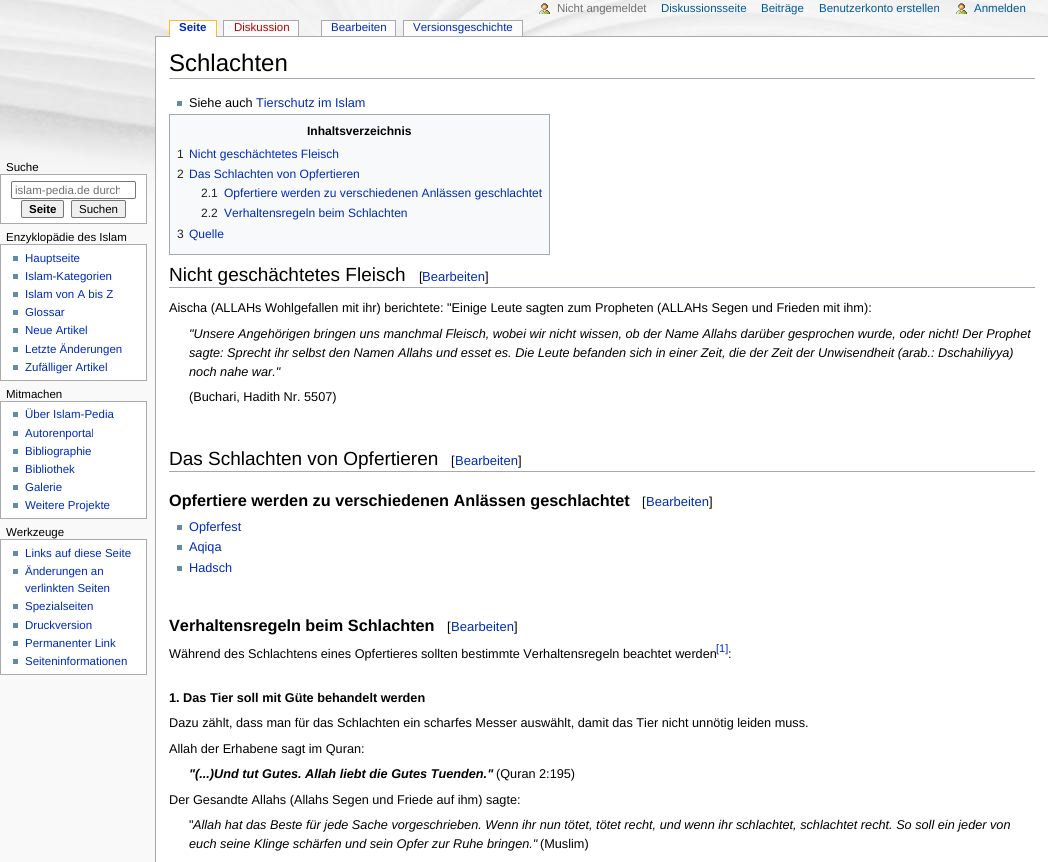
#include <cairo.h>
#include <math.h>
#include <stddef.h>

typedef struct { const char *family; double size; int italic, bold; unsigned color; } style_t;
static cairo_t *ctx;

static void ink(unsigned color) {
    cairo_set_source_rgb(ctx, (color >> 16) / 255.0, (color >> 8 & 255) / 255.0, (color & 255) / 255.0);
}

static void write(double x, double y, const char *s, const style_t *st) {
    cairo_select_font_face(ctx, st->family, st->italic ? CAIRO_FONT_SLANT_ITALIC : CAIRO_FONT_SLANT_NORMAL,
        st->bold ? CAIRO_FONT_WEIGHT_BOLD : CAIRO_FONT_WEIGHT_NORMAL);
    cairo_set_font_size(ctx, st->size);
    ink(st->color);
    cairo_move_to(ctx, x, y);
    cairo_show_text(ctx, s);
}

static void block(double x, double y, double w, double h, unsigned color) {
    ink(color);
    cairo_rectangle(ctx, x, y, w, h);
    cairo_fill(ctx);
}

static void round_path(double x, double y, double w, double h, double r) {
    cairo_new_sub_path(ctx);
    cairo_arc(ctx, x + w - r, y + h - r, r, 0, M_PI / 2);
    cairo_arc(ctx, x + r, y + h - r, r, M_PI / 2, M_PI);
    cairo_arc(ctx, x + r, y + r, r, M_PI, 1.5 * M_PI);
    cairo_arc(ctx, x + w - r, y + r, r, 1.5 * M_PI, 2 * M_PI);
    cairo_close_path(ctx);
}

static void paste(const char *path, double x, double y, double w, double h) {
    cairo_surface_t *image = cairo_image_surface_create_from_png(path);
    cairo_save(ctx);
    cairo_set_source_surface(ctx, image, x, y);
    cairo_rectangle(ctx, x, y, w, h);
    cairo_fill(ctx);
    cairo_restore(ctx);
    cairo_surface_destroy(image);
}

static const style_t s1 = {"Liberation Sans", 11.5, 0, 0, 0x707070};
static const style_t s2 = {"Liberation Sans", 11.5, 0, 0, 0x005896};
static const style_t s3 = {"Liberation Sans", 11.5, 0, 1, 0x002bb8};
static const style_t s4 = {"Liberation Sans", 11.5, 0, 0, 0xba0000};
static const style_t s5 = {"Liberation Sans", 11.5, 0, 0, 0x002bb8};
static const style_t s6 = {"Liberation Sans", 11.5, 0, 0, 0x000000};
static const style_t s7 = {"Liberation Sans", 11.5, 0, 1, 0x000000};
static const style_t s8 = {"Liberation Sans", 24, 0, 0, 0x000000};
static const style_t s9 = {"Liberation Sans", 12.7, 0, 0, 0x000000};
static const style_t s10 = {"Liberation Sans", 12.7, 0, 0, 0x002bb8};
static const style_t s11 = {"Liberation Sans", 12.05, 0, 1, 0x000000};
static const style_t s12 = {"Liberation Sans", 12.05, 0, 0, 0x222222};
static const style_t s13 = {"Liberation Sans", 12.05, 0, 0, 0x002bb8};
static const style_t s14 = {"Liberation Sans", 19, 0, 0, 0x000000};
static const style_t s15 = {"Liberation Sans", 13, 0, 0, 0x000000};
static const style_t s16 = {"Liberation Sans", 13, 0, 0, 0x002bb8};
static const style_t s17 = {"Liberation Sans", 12.7, 1, 0, 0x000000};
static const style_t s18 = {"Liberation Sans", 16.25, 0, 1, 0x000000};
static const style_t s19 = {"Liberation Sans", 11, 0, 0, 0x002bb8};
static const style_t s20 = {"Liberation Sans", 12.7, 0, 1, 0x000000};
static const style_t s21 = {"Liberation Sans", 12.7, 1, 1, 0x000000};

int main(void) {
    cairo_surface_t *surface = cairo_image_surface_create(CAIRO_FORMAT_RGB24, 1048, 862);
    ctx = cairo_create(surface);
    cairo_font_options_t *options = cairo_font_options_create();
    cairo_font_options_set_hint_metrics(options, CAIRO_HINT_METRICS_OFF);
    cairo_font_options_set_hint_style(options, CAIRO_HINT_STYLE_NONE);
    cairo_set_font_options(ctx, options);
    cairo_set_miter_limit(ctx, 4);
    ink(0xf9f9f9);
    cairo_paint(ctx);
    paste("pic1.png", 0, 0, 1048, 194);
    paste("pic2.png", 539, 3, 11, 11);
    write(557, 12, "Nicht angemeldet", &s1);
    write(661, 12, "Diskussionsseite", &s2);
    write(761, 12, "Beiträge", &s2);
    write(819, 12, "Benutzerkonto erstellen", &s2);
    paste("pic3.png", 956, 3, 11, 11);
    write(974, 12, "Anmelden", &s2);
    block(155, 36, 893, 1, 0xaaaaaa);
    block(170, 21, 46, 16, 0xffffff);
    write(179, 31, "Seite", &s3);
    block(169, 20, 48, 1, 0xfabd23);
    block(216, 20, 1, 16, 0xfabd23);
    block(169, 20, 1, 16, 0xfabd23);
    block(224, 21, 74, 15, 0xfbfbfb);
    write(234, 31, "Diskussion", &s4);
    block(223, 20, 76, 1, 0xaaaaaa);
    block(298, 20, 1, 16, 0xaaaaaa);
    block(223, 20, 1, 16, 0xaaaaaa);
    block(322, 21, 73, 15, 0xfbfbfb);
    write(331, 31, "Bearbeiten", &s5);
    block(321, 20, 75, 1, 0xaaaaaa);
    block(395, 20, 1, 16, 0xaaaaaa);
    block(321, 20, 1, 16, 0xaaaaaa);
    block(404, 21, 118, 15, 0xfbfbfb);
    write(413, 31, "Versionsgeschichte", &s5);
    block(403, 20, 120, 1, 0xaaaaaa);
    block(522, 20, 1, 16, 0xaaaaaa);
    block(403, 20, 1, 16, 0xaaaaaa);
    write(6, 171, "Suche", &s6);
    ink(0xffffff);
    cairo_rectangle(ctx, 0.5, 174.5, 146, 49);
    cairo_fill_preserve(ctx);
    ink(0xaaaaaa);
    cairo_set_line_width(ctx, 1);
    cairo_stroke(ctx);
    round_path(11.5, 181.5, 124, 17, 1.5);
    ink(0x767676);
    cairo_stroke(ctx);
    cairo_save(ctx);
    cairo_rectangle(ctx, 15, 184, 105, 12);
    cairo_clip(ctx);
    write(15, 194, "islam-pedia.de durch", &s1);
    cairo_restore(ctx);
    ink(0xefefef);
    round_path(21.5, 200.5, 42, 17, 1.5);
    cairo_fill_preserve(ctx);
    ink(0x767676);
    cairo_stroke(ctx);
    write(29, 213, "Seite", &s7);
    ink(0xefefef);
    round_path(71.5, 200.5, 54, 17, 1.5);
    cairo_fill_preserve(ctx);
    ink(0x767676);
    cairo_stroke(ctx);
    write(79, 213, "Suchen", &s6);
    write(6, 241, "Enzyklopädie des Islam", &s6);
    ink(0xffffff);
    cairo_rectangle(ctx, 0.5, 244.5, 146, 136);
    cairo_fill_preserve(ctx);
    ink(0xaaaaaa);
    cairo_stroke(ctx);
    block(13, 256, 5, 5, 0x638c9c);
    write(25, 262, "Hauptseite", &s5);
    block(13, 274, 5, 5, 0x638c9c);
    write(25, 280, "Islam-Kategorien", &s5);
    block(13, 292, 5, 5, 0x638c9c);
    write(25, 298, "Islam von A bis Z", &s5);
    block(13, 310, 5, 5, 0x638c9c);
    write(25, 316, "Glossar", &s5);
    block(13, 328, 5, 5, 0x638c9c);
    write(25, 334, "Neue Artikel", &s5);
    block(13, 347, 5, 5, 0x638c9c);
    write(25, 353, "Letzte Änderungen", &s5);
    block(13, 365, 5, 5, 0x638c9c);
    write(25, 371, "Zufälliger Artikel", &s5);
    write(6, 398, "Mitmachen", &s6);
    ink(0xffffff);
    cairo_rectangle(ctx, 0.5, 401.5, 146, 117);
    cairo_fill_preserve(ctx);
    ink(0xaaaaaa);
    cairo_stroke(ctx);
    block(13, 412, 5, 5, 0x638c9c);
    write(25, 418, "Über Islam-Pedia", &s5);
    block(13, 431, 5, 5, 0x638c9c);
    write(25, 437, "Autorenportal", &s5);
    block(13, 449, 5, 5, 0x638c9c);
    write(25, 455, "Bibliographie", &s5);
    block(13, 467, 5, 5, 0x638c9c);
    write(25, 473, "Bibliothek", &s5);
    block(13, 485, 5, 5, 0x638c9c);
    write(25, 491, "Galerie", &s5);
    block(13, 503, 5, 5, 0x638c9c);
    write(25, 509, "Weitere Projekte", &s5);
    write(6, 536, "Werkzeuge", &s6);
    ink(0xffffff);
    cairo_rectangle(ctx, 0.5, 539.5, 146, 135);
    cairo_fill_preserve(ctx);
    ink(0xaaaaaa);
    cairo_stroke(ctx);
    block(13, 551, 5, 5, 0x638c9c);
    write(25, 557, "Links auf diese Seite", &s5);
    block(13, 569, 5, 5, 0x638c9c);
    write(25, 575, "Änderungen an", &s5);
    write(25, 592, "verlinkten Seiten", &s5);
    block(13, 604, 5, 5, 0x638c9c);
    write(25, 610, "Spezialseiten", &s5);
    block(13, 623, 5, 5, 0x638c9c);
    write(25, 629, "Druckversion", &s5);
    block(13, 641, 5, 5, 0x638c9c);
    write(25, 647, "Permanenter Link", &s5);
    block(13, 659, 5, 5, 0x638c9c);
    write(25, 665, "Seiteninformationen", &s5);
    block(156, 37, 892, 825, 0xffffff);
    block(155, 36, 1, 826, 0xaaaaaa);
    block(169, 78, 866, 1, 0xa2a9b1);
    write(169, 71, "Schlachten", &s8);
    block(177, 101, 5, 5, 0x638c9c);
    write(189, 107, "Siehe auch", &s9);
    write(256, 107, "Tierschutz im Islam", &s10);
    ink(0xf8f9fa);
    cairo_rectangle(ctx, 169.5, 114.5, 380, 140);
    cairo_fill_preserve(ctx);
    ink(0xa2a9b1);
    cairo_stroke(ctx);
    write(307, 135, "Inhaltsverzeichnis", &s11);
    write(177, 158, "1", &s12);
    write(189, 158, "Nicht geschächtetes Fleisch", &s13);
    write(177, 178, "2", &s12);
    write(189, 178, "Das Schlachten von Opfertieren", &s13);
    write(201, 197, "2.1", &s12);
    write(224, 197, "Opfertiere werden zu verschiedenen Anlässen geschlachtet", &s13);
    write(201, 217, "2.2", &s12);
    write(224, 217, "Verhaltensregeln beim Schlachten", &s13);
    write(177, 238, "3", &s12);
    write(189, 238, "Quelle", &s13);
    block(169, 287, 866, 1, 0xa2a9b1);
    write(169, 281, "Nicht geschächtetes Fleisch", &s14);
    write(419, 281, "[", &s15);
    write(422, 281, "Bearbeiten", &s16);
    write(485, 281, "]", &s15);
    write(169, 312, "Aischa (ALLAHs Wohlgefallen mit ihr) berichtete: \"Einige Leute sagten zum Propheten (ALLAHs Segen und Frieden mit ihm):", &s9);
    write(189, 338, "\"Unsere Angehörigen bringen uns manchmal Fleisch, wobei wir nicht wissen, ob der Name Allahs darüber gesprochen wurde, oder nicht! Der Prophet", &s17);
    write(189, 357, "sagte: Sprecht ihr selbst den Namen Allahs und esset es. Die Leute befanden sich in einer Zeit, die der Zeit der Unwisendheit (arab.: Dschahiliyya)", &s17);
    write(189, 376, "noch nahe war.\"", &s17);
    write(189, 401, "(Buchari, Hadith Nr. 5507)", &s9);
    block(169, 471, 866, 1, 0xa2a9b1);
    write(169, 465, "Das Schlachten von Opfertieren", &s14);
    write(451, 465, "[", &s15);
    write(455, 465, "Bearbeiten", &s16);
    write(518, 465, "]", &s15);
    write(169, 506, "Opfertiere werden zu verschiedenen Anlässen geschlachtet", &s18);
    write(642, 506, "[", &s15);
    write(646, 506, "Bearbeiten", &s16);
    write(709, 506, "]", &s15);
    block(177, 525, 5, 5, 0x638c9c);
    write(189, 531, "Opferfest", &s10);
    block(177, 545, 5, 5, 0x638c9c);
    write(189, 551, "Aqiqa", &s10);
    block(177, 566, 5, 5, 0x638c9c);
    write(189, 572, "Hadsch", &s10);
    write(169, 631, "Verhaltensregeln beim Schlachten", &s18);
    write(447, 631, "[", &s15);
    write(451, 631, "Bearbeiten", &s16);
    write(514, 631, "]", &s15);
    write(169, 658, "Während des Schlachtens eines Opfertieres sollten bestimmte Verhaltensregeln beachtet werden", &s9);
    write(716, 652, "[1]", &s19);
    write(728, 658, ":", &s9);
    write(169, 702, "1. Das Tier soll mit Güte behandelt werden", &s20);
    write(169, 727, "Dazu zählt, dass man für das Schlachten ein scharfes Messer auswählt, damit das Tier nicht unnötig leiden muss.", &s9);
    write(169, 753, "Allah der Erhabene sagt im Quran:", &s9);
    write(189, 778, "\"(...)Und tut Gutes. Allah liebt die Gutes Tuenden.\"", &s21);
    write(496, 778, "(Quran 2:195)", &s9);
    write(169, 804, "Der Gesandte Allahs (Allahs Segen und Friede auf ihm) sagte:", &s9);
    write(189, 829, "\"", &s9);
    write(193, 829, "Allah hat das Beste für jede Sache vorgeschrieben. Wenn ihr nun tötet, tötet recht, und wenn ihr schlachtet, schlachtet recht. So soll ein jeder von", &s17);
    write(189, 848, "euch seine Klinge schärfen und sein Opfer zur Ruhe bringen.\"", &s17);
    write(540, 848, "(Muslim)", &s9);
    cairo_surface_write_to_png(surface, "screenshot.png");
    cairo_font_options_destroy(options);
    cairo_destroy(ctx);
    cairo_surface_destroy(surface);
    return 0;
}
